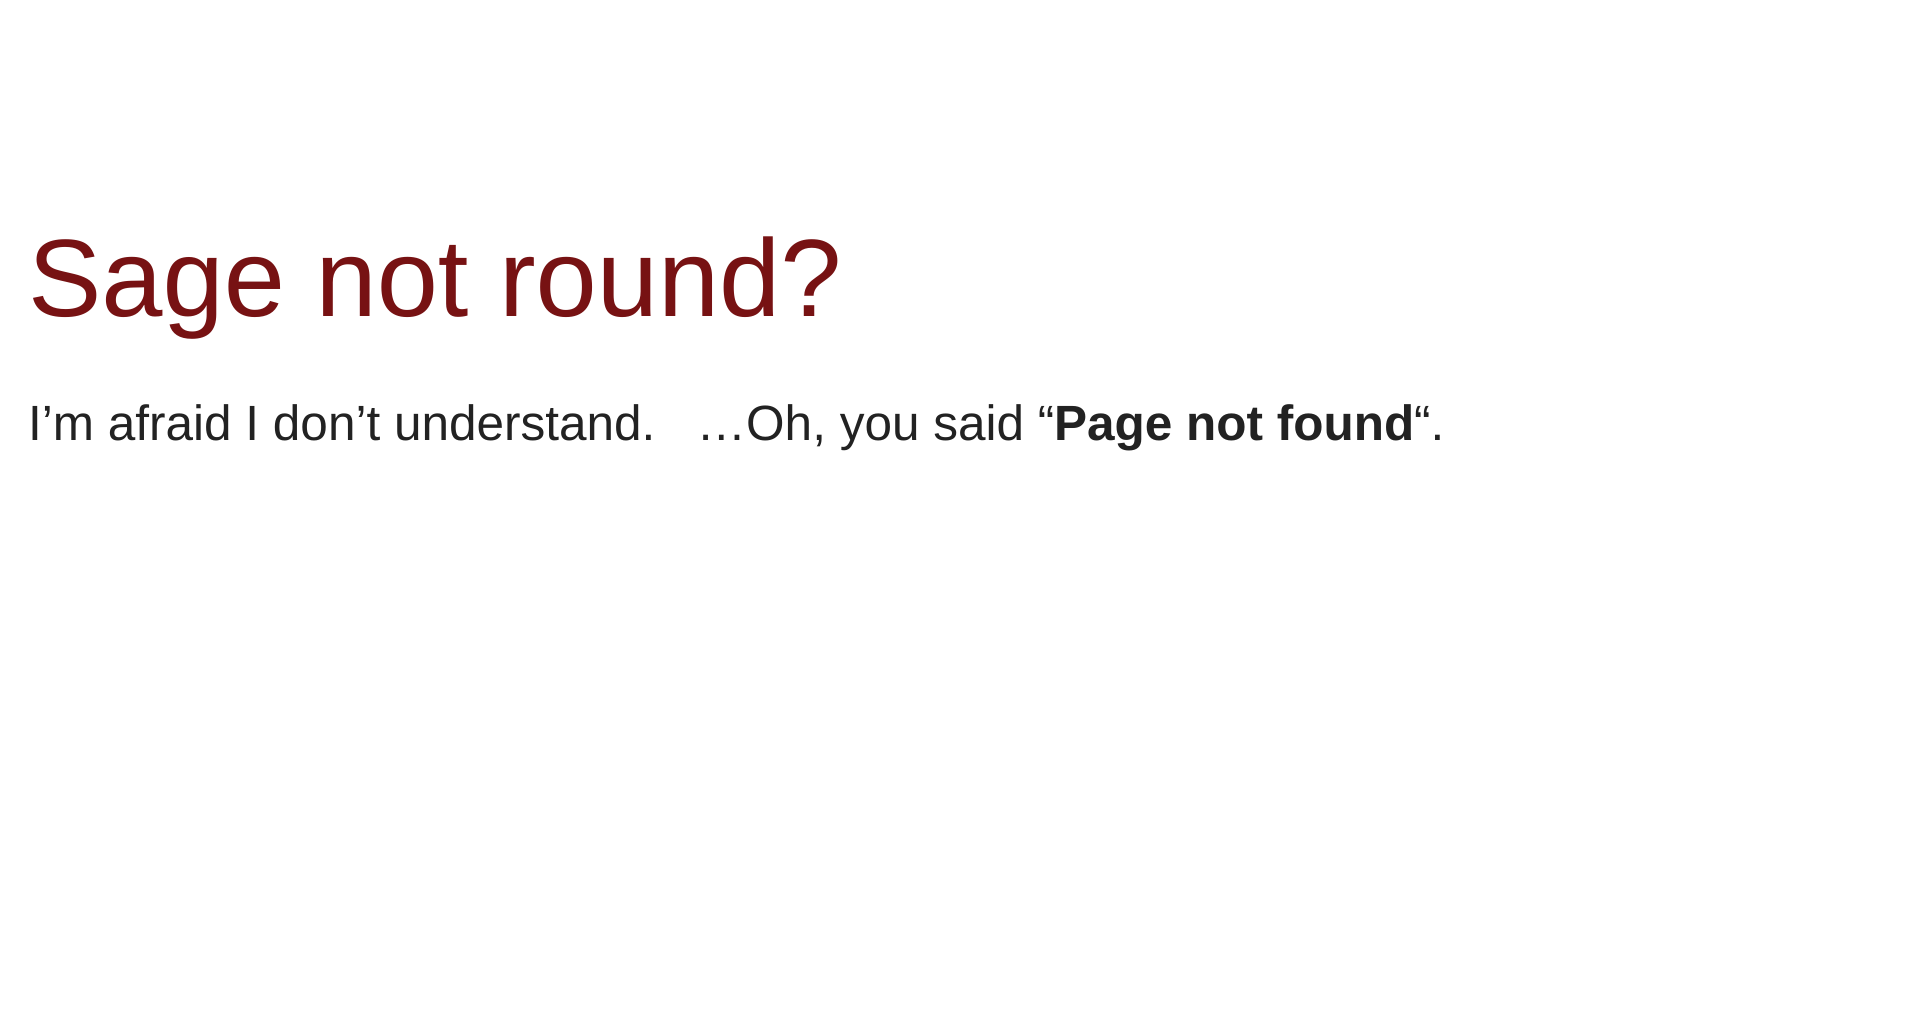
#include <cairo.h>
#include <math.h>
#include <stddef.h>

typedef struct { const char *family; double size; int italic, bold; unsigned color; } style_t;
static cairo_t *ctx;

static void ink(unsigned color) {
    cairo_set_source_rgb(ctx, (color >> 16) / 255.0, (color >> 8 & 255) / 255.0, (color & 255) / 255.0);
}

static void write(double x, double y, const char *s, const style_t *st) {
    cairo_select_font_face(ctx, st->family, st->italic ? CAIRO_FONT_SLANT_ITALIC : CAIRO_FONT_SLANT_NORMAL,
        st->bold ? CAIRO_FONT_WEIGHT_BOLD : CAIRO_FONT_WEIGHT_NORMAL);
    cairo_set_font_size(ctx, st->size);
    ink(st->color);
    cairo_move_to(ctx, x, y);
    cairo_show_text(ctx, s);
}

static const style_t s1 = {"Liberation Sans", 110, 0, 0, 0x771213};
static const style_t s2 = {"Liberation Sans", 49.5, 0, 0, 0x222222};
static const style_t s3 = {"Liberation Sans", 49.5, 0, 1, 0x222222};

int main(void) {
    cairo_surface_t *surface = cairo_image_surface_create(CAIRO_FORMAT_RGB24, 1914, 1018);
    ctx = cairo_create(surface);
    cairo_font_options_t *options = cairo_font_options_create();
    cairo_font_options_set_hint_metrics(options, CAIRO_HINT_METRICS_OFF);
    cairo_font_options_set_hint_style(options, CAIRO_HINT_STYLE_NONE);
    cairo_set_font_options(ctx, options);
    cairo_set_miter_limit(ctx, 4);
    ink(0xffffff);
    cairo_paint(ctx);
    write(28, 316, "Sage not round?", &s1);
    write(28, 440, "I’m afraid I don’t understand.   …Oh, you said “", &s2);
    write(1054, 440, "Page not found", &s3);
    write(1414, 440, "“.", &s2);
    cairo_surface_write_to_png(surface, "screenshot.png");
    cairo_font_options_destroy(options);
    cairo_destroy(ctx);
    cairo_surface_destroy(surface);
    return 0;
}
